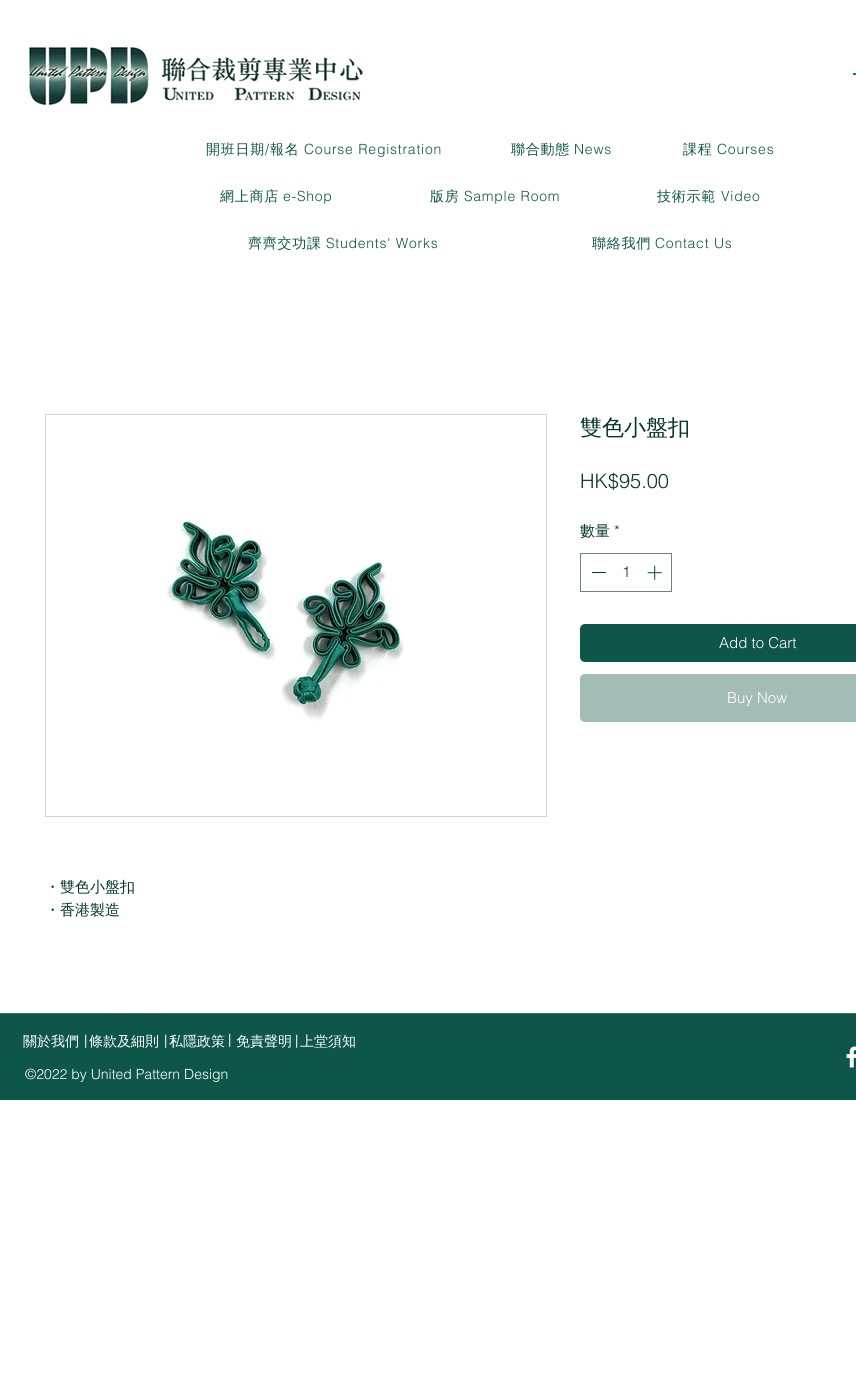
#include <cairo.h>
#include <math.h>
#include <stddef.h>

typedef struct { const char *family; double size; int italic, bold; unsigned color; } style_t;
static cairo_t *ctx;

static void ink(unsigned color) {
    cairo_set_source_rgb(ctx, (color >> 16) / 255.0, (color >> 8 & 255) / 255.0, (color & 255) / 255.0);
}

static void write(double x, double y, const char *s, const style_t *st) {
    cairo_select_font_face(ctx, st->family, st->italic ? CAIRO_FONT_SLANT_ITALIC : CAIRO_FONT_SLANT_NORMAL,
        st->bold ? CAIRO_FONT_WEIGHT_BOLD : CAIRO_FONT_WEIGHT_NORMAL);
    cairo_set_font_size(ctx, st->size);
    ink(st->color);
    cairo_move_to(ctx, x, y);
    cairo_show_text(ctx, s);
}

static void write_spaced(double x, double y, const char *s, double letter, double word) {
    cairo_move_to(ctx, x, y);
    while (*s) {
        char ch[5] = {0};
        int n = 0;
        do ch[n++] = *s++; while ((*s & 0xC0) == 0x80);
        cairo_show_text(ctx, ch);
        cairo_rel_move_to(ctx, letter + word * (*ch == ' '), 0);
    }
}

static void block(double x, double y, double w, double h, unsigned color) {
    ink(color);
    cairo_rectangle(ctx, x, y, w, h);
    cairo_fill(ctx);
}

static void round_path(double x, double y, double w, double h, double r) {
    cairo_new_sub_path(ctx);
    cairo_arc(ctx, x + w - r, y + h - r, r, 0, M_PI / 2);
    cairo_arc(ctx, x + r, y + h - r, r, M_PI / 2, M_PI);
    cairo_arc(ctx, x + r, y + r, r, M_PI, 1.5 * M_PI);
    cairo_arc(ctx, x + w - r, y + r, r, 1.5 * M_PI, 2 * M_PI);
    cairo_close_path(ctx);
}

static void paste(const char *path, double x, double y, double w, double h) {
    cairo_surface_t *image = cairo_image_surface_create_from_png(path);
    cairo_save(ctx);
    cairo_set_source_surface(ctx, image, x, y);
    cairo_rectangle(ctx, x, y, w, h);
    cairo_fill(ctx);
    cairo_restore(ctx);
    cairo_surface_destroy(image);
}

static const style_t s1 = {"WenQuanYi Zen Hei Medium", 22, 0, 0, 0x04342d};
static const style_t s2 = {"helvetica Light", 20, 0, 0, 0x04342d};
static const style_t s3 = {"WenQuanYi Zen Hei Medium", 15, 0, 0, 0x04342d};
static const style_t s4 = {"helvetica Light", 15, 0, 0, 0x04342d};
static const style_t s5 = {"helvetica Light", 15, 0, 0, 0xffffff};
static const style_t s6 = {"WenQuanYi Zen Hei Medium", 14, 0, 0, 0xffffff};
static const style_t s7 = {"futura", 13, 0, 0, 0xffffff};
static const style_t s8 = {"helvetica Light", 14, 0, 0, 0xffffff};

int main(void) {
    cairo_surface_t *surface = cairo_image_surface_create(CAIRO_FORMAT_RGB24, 856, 1373);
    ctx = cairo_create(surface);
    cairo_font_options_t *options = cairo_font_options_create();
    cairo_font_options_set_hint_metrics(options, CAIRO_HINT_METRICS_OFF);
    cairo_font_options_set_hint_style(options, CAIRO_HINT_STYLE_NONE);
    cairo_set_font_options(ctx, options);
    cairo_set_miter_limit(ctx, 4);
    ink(0xffffff);
    cairo_paint(ctx);
    paste("pic1.png", 29, 47, 334, 58);
    paste("pic2.png", 853, 73, 3, 2);
    cairo_select_font_face(ctx, "WenQuanYi Zen Hei Medium", CAIRO_FONT_SLANT_NORMAL, CAIRO_FONT_WEIGHT_NORMAL);
    cairo_set_font_size(ctx, 14);
    ink(0x0d5649);
    write_spaced(206, 154, "開班日期", 0.75, 0);
    cairo_select_font_face(ctx, "helvetica Light", CAIRO_FONT_SLANT_NORMAL, CAIRO_FONT_WEIGHT_NORMAL);
    write_spaced(265, 154, "/", 0.75, 0);
    cairo_select_font_face(ctx, "WenQuanYi Zen Hei Medium", CAIRO_FONT_SLANT_NORMAL, CAIRO_FONT_WEIGHT_NORMAL);
    write_spaced(270, 154, "報名", 0.75, 0);
    cairo_select_font_face(ctx, "helvetica Light", CAIRO_FONT_SLANT_NORMAL, CAIRO_FONT_WEIGHT_NORMAL);
    write_spaced(304, 154, "Course Registration", 0.75, 0);
    cairo_select_font_face(ctx, "WenQuanYi Zen Hei Medium", CAIRO_FONT_SLANT_NORMAL, CAIRO_FONT_WEIGHT_NORMAL);
    write_spaced(511, 154, "聯合動態", 0.75, 0);
    cairo_select_font_face(ctx, "helvetica Light", CAIRO_FONT_SLANT_NORMAL, CAIRO_FONT_WEIGHT_NORMAL);
    write_spaced(574, 154, "News", 0.75, 0);
    cairo_select_font_face(ctx, "WenQuanYi Zen Hei Medium", CAIRO_FONT_SLANT_NORMAL, CAIRO_FONT_WEIGHT_NORMAL);
    write_spaced(683, 154, "課程", 0.75, 0);
    cairo_select_font_face(ctx, "helvetica Light", CAIRO_FONT_SLANT_NORMAL, CAIRO_FONT_WEIGHT_NORMAL);
    write_spaced(717, 154, "Courses", 0.75, 0);
    cairo_select_font_face(ctx, "WenQuanYi Zen Hei Medium", CAIRO_FONT_SLANT_NORMAL, CAIRO_FONT_WEIGHT_NORMAL);
    write_spaced(220, 201, "網上商店", 0.75, 0);
    cairo_select_font_face(ctx, "helvetica Light", CAIRO_FONT_SLANT_NORMAL, CAIRO_FONT_WEIGHT_NORMAL);
    write_spaced(283, 201, "e-Shop", 0.75, 0);
    cairo_select_font_face(ctx, "WenQuanYi Zen Hei Medium", CAIRO_FONT_SLANT_NORMAL, CAIRO_FONT_WEIGHT_NORMAL);
    write_spaced(430, 201, "版房", 0.75, 0);
    cairo_select_font_face(ctx, "helvetica Light", CAIRO_FONT_SLANT_NORMAL, CAIRO_FONT_WEIGHT_NORMAL);
    write_spaced(464, 201, "Sample Room", 0.75, 0);
    cairo_select_font_face(ctx, "WenQuanYi Zen Hei Medium", CAIRO_FONT_SLANT_NORMAL, CAIRO_FONT_WEIGHT_NORMAL);
    write_spaced(657, 201, "技術示範", 0.75, 0);
    cairo_select_font_face(ctx, "helvetica Light", CAIRO_FONT_SLANT_NORMAL, CAIRO_FONT_WEIGHT_NORMAL);
    write_spaced(721, 201, "Video", 0.75, 0);
    cairo_select_font_face(ctx, "WenQuanYi Zen Hei Medium", CAIRO_FONT_SLANT_NORMAL, CAIRO_FONT_WEIGHT_NORMAL);
    write_spaced(248, 248, "齊齊交功課", 0.75, 0);
    cairo_select_font_face(ctx, "helvetica Light", CAIRO_FONT_SLANT_NORMAL, CAIRO_FONT_WEIGHT_NORMAL);
    write_spaced(326, 248, "Students' Works", 0.75, 0);
    cairo_select_font_face(ctx, "WenQuanYi Zen Hei Medium", CAIRO_FONT_SLANT_NORMAL, CAIRO_FONT_WEIGHT_NORMAL);
    write_spaced(592, 248, "聯絡我們", 0.75, 0);
    cairo_select_font_face(ctx, "helvetica Light", CAIRO_FONT_SLANT_NORMAL, CAIRO_FONT_WEIGHT_NORMAL);
    write_spaced(655, 248, "Contact Us", 0.75, 0);
    write(580, 435, "雙色小盤扣", &s1);
    write(580, 488, "HK$95.00", &s2);
    write(580, 536, "數量", &s3);
    write(614, 536, "*", &s4);
    cairo_rectangle(ctx, 580.5, 553.5, 91, 38);
    ink(0x688581);
    cairo_set_line_width(ctx, 1);
    cairo_stroke(ctx);
    block(592, 572, 14, 1, 0x04342d);
    write(622, 577, "1", &s4);
    paste("pic3.png", 647, 565, 15, 15);
    ink(0x0d5649);
    round_path(580, 624, 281, 38, 5);
    cairo_fill(ctx);
    write(719, 648, "Add to Cart", &s5);
    ink(0xa3bcb6);
    round_path(580, 674, 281, 48, 5);
    cairo_fill(ctx);
    write(727, 703, "Buy Now", &s5);
    cairo_rectangle(ctx, 45.5, 414.5, 501, 402);
    ink(0xcdd6d5);
    cairo_stroke(ctx);
    paste("pic4.png", 166, 519, 240, 203);
    write(45, 892, "・雙色小盤扣", &s3);
    write(45, 915, "・香港製造", &s3);
    block(0, 1014, 856, 86, 0x0d5649);
    block(0, 1013, 856, 1, 0x316f64);
    write(23, 1046, "關於我們", &s6);
    write(82, 1045, "|", &s7);
    write(89, 1046, "條款及細則", &s6);
    write(162, 1045, "|", &s7);
    write(169, 1046, "私隱政策", &s6);
    write(226, 1044, "|", &s7);
    write(236, 1046, "免責聲明", &s6);
    write(293, 1045, "|", &s7);
    write(300, 1046, "上堂須知", &s6);
    write(25, 1079, "©2022 by United Pattern Design", &s8);
    paste("pic5.png", 846, 1046, 10, 22);
    cairo_surface_write_to_png(surface, "screenshot.png");
    cairo_font_options_destroy(options);
    cairo_destroy(ctx);
    cairo_surface_destroy(surface);
    return 0;
}
